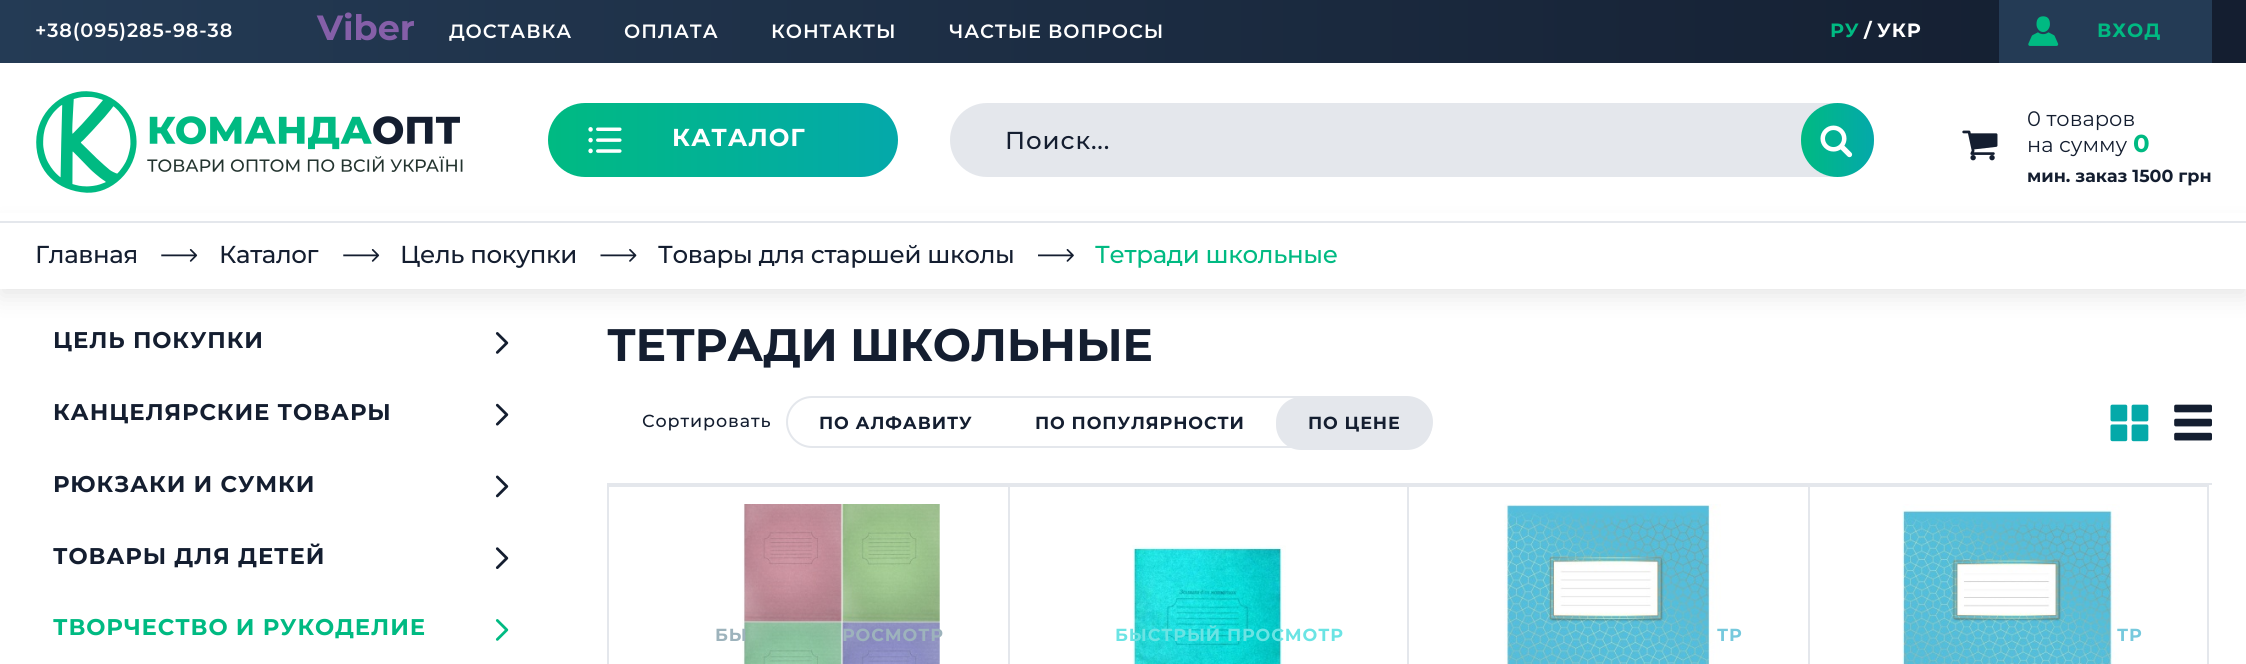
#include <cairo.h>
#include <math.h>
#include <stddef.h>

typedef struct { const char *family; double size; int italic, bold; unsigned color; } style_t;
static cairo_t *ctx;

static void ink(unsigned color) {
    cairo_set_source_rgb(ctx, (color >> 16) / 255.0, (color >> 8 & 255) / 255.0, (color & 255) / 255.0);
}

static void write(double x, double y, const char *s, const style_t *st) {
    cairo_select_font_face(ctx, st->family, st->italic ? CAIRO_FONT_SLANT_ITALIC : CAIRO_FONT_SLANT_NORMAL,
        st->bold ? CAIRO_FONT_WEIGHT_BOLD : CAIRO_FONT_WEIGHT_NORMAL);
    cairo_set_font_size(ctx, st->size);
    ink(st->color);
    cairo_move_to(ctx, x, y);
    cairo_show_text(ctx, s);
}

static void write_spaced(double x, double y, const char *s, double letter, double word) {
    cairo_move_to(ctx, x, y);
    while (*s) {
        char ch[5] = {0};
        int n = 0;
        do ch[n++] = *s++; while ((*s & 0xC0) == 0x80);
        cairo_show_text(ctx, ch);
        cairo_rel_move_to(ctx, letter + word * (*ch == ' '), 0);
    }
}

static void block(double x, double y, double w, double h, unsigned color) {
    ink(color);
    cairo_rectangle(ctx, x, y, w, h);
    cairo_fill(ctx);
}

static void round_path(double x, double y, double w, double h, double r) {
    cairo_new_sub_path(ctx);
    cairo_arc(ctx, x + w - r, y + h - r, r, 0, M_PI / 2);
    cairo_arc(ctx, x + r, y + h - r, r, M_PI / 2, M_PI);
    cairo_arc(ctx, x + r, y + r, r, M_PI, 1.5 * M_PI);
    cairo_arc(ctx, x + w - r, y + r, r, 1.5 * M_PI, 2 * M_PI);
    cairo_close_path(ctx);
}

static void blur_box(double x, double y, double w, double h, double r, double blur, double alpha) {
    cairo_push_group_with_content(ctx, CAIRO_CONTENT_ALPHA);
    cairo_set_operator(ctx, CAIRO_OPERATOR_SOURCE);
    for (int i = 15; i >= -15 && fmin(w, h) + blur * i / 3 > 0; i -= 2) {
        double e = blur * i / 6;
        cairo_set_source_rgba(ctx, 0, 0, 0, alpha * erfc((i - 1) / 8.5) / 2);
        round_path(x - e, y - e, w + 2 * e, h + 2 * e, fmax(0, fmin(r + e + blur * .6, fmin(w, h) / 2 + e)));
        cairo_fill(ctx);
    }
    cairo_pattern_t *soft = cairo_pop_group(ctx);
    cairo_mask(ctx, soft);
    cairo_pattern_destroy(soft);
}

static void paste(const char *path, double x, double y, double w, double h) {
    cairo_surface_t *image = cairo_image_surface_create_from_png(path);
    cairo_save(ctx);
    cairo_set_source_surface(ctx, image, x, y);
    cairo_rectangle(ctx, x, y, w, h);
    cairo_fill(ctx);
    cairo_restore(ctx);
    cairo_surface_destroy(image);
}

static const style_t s1 = {"Montserrat", 35, 0, 1, 0x855fa8};
static const style_t s2 = {"Montserrat", 19.25, 0, 1, 0xffffff};
static const style_t s3 = {"Montserrat", 21, 0, 0, 0x141e30};
static const style_t s4 = {"Montserrat", 24.5, 0, 1, 0x00ba82};
static const style_t s5 = {"Montserrat", 17.5, 0, 1, 0x141e30};

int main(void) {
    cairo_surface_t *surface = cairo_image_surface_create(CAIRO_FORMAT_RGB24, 2246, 664);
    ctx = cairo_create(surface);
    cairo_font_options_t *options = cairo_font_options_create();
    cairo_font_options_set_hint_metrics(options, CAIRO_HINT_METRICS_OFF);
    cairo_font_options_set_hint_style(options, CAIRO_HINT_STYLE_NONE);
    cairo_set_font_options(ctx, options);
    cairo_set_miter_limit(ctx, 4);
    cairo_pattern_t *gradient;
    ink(0xffffff);
    cairo_paint(ctx);
    gradient = cairo_pattern_create_linear(0, 32, 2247, 31);
    cairo_pattern_add_color_stop_rgba(gradient, 0, 0.141, 0.231, 0.333, 1);
    cairo_pattern_add_color_stop_rgba(gradient, 0.97, 0.078, 0.118, 0.188, 1);
    cairo_set_source(ctx, gradient);
    cairo_pattern_destroy(gradient);
    cairo_rectangle(ctx, 0, 0, 2246, 63);
    cairo_fill(ctx);
    cairo_select_font_face(ctx, "Montserrat SemiBold", CAIRO_FONT_SLANT_NORMAL, CAIRO_FONT_WEIGHT_NORMAL);
    cairo_set_font_size(ctx, 19.25);
    ink(0xffffff);
    write_spaced(35, 37, "+38(095)285-98-38", 0.9, 0);
    write(317, 40, "Viber", &s1);
    cairo_select_font_face(ctx, "Montserrat SemiBold", CAIRO_FONT_SLANT_NORMAL, CAIRO_FONT_WEIGHT_NORMAL);
    cairo_set_font_size(ctx, 19.25);
    ink(0xffffff);
    write_spaced(449, 38, "ДОСТАВКА", 0.9, 0);
    write_spaced(624, 38, "ОПЛАТА", 0.9, 0);
    write_spaced(771, 38, "КОНТАКТЫ", 0.9, 0);
    write_spaced(949, 38, "ЧАСТЫЕ ВОПРОСЫ", 0.9, 0);
    cairo_select_font_face(ctx, "Montserrat", CAIRO_FONT_SLANT_NORMAL, CAIRO_FONT_WEIGHT_BOLD);
    ink(0x00ba82);
    write_spaced(1830, 37, "РУ", 0.9, 0);
    write(1864, 37, "/", &s2);
    write_spaced(1877, 37, "УКР", 0.9, 0);
    block(1999, 0, 213, 63, 0x243b55);
    paste("pic1.png", 2028, 16, 31, 30);
    ink(0x00ba82);
    write_spaced(2097, 37, "ВХОД", 0.9, 0);
    paste("pic9.png", 495, 332, 14, 22);
    ink(0x000000);
    blur_box(0, 228, 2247, 68, 0, 12, 0.1);
    paste("pic2.png", 36, 91, 427, 102);
    gradient = cairo_pattern_create_linear(548, 140, 898, 140);
    cairo_pattern_add_color_stop_rgba(gradient, 0, 0, 0.729, 0.51, 1);
    cairo_pattern_add_color_stop_rgba(gradient, 0.97, 0.016, 0.663, 0.663, 1);
    cairo_set_source(ctx, gradient);
    cairo_pattern_destroy(gradient);
    round_path(548, 103, 350, 74, 37);
    cairo_fill(ctx);
    paste("pic3.png", 588, 127, 34, 27);
    cairo_set_font_size(ctx, 24.5);
    ink(0xffffff);
    write_spaced(672, 146, "КАТАЛОГ", 0.9, 0);
    ink(0xe4e7ec);
    round_path(951, 104, 922, 72, 36);
    cairo_fill_preserve(ctx);
    cairo_stroke(ctx);
    cairo_select_font_face(ctx, "Montserrat Medium", CAIRO_FONT_SLANT_NORMAL, CAIRO_FONT_WEIGHT_NORMAL);
    ink(0x141e30);
    write_spaced(1005, 149, "Поиск...", 0.9, 0);
    gradient = cairo_pattern_create_linear(1801, 140, 1874, 140);
    cairo_pattern_add_color_stop_rgba(gradient, 0, 0, 0.729, 0.51, 1);
    cairo_pattern_add_color_stop_rgba(gradient, 0.97, 0.016, 0.663, 0.663, 1);
    cairo_set_source(ctx, gradient);
    cairo_pattern_destroy(gradient);
    round_path(1801, 103, 73, 74, 36.5);
    cairo_fill(ctx);
    paste("pic4.png", 1820, 125, 33, 33);
    write(2027, 126, "0 товаров", &s3);
    paste("pic5.png", 1962, 130, 36, 31);
    write(2027, 152, "на сумму", &s3);
    write(2133, 152, "0", &s4);
    write(2027, 182, "мин. заказ 1500 грн", &s5);
    block(0, 213, 2246, 8, 0xffffff);
    block(0, 223, 2246, 66, 0xffffff);
    block(0, 221, 2246, 2, 0xe4e7ec);
    cairo_select_font_face(ctx, "Montserrat Medium", CAIRO_FONT_SLANT_NORMAL, CAIRO_FONT_WEIGHT_NORMAL);
    cairo_set_font_size(ctx, 24.5);
    ink(0x141e30);
    write_spaced(35, 263, "Главная", -0.35, 0);
    paste("pic6.png", 161, 249, 37, 13);
    write_spaced(219, 263, "Каталог", -0.35, 0);
    paste("pic6.png", 343, 249, 37, 13);
    write_spaced(400, 263, "Цель покупки", -0.35, 0);
    paste("pic7.png", 600, 249, 37, 13);
    write_spaced(658, 263, "Товары для старшей школы", -0.35, 0);
    paste("pic8.png", 1038, 249, 36, 13);
    ink(0x00ba82);
    write_spaced(1095, 263, "Тетради школьные", -0.35, 0);
    cairo_select_font_face(ctx, "Montserrat", CAIRO_FONT_SLANT_NORMAL, CAIRO_FONT_WEIGHT_BOLD);
    cairo_set_font_size(ctx, 22.75);
    ink(0x141e30);
    write_spaced(53, 348, "ЦЕЛЬ ПОКУПКИ", 0.9, 0);
    write_spaced(53, 420, "КАНЦЕЛЯРСКИЕ ТОВАРЫ", 0.9, 0);
    paste("pic10.png", 495, 403, 14, 23);
    write_spaced(53, 492, "РЮКЗАКИ И СУМКИ", 0.9, 0);
    paste("pic11.png", 495, 475, 14, 23);
    write_spaced(53, 564, "ТОВАРЫ ДЛЯ ДЕТЕЙ", 0.9, 0);
    paste("pic12.png", 495, 547, 14, 22);
    ink(0x00ba82);
    write_spaced(53, 635, "ТВОРЧЕСТВО И РУКОДЕЛИЕ", 0.9, 0);
    paste("pic13.png", 495, 619, 14, 22);
    cairo_set_font_size(ctx, 45.5);
    ink(0x141e30);
    write_spaced(607, 361, "ТЕТРАДИ ШКОЛЬНЫЕ", -0.35, 0);
    block(607, 483, 1605, 2, 0xe4e7ec);
    cairo_select_font_face(ctx, "Montserrat Medium", CAIRO_FONT_SLANT_NORMAL, CAIRO_FONT_WEIGHT_NORMAL);
    cairo_set_font_size(ctx, 17.5);
    ink(0x141e30);
    write_spaced(642, 427, "Сортировать", 0.9, 0);
    round_path(787, 397, 645, 50, 25);
    ink(0xe4e7ec);
    cairo_stroke(ctx);
    cairo_select_font_face(ctx, "Montserrat", CAIRO_FONT_SLANT_NORMAL, CAIRO_FONT_WEIGHT_BOLD);
    ink(0x141e30);
    write_spaced(819, 429, "ПО АЛФАВИТУ", 0.9, 0);
    write_spaced(1035, 429, "ПО ПОПУЛЯРНОСТИ", 0.9, 0);
    ink(0xe4e7ec);
    round_path(1276, 397, 156, 53, 25);
    cairo_fill(ctx);
    ink(0x141e30);
    write_spaced(1308, 429, "ПО ЦЕНЕ", 0.9, 0);
    paste("pic14.png", 2110, 404, 39, 38);
    paste("pic15.png", 2174, 404, 38, 37);
    cairo_rectangle(ctx, 608, 486, 401, 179);
    ink(0xe4e7ec);
    cairo_stroke(ctx);
    paste("pic16.png", 742, 504, 198, 160);
    ink(0x9db3bc);
    write_spaced(715, 641, "БЫ", 0.9, 0);
    write_spaced(842, 641, "РОСМОТР", 0.9, 0);
    cairo_rectangle(ctx, 1009, 486, 399, 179);
    ink(0xe4e7ec);
    cairo_stroke(ctx);
    paste("pic17.png", 1132, 545, 154, 119);
    ink(0x6be4e4);
    write_spaced(1115, 641, "БЫСТРЫЙ ПРОСМОТР", 0.9, 0);
    cairo_rectangle(ctx, 1408, 486, 401, 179);
    ink(0xe4e7ec);
    cairo_stroke(ctx);
    paste("pic18.png", 1504, 504, 217, 160);
    ink(0x76c9dd);
    write_spaced(1717, 641, "ТР", 0.9, 0);
    cairo_rectangle(ctx, 1809, 486, 399, 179);
    ink(0xe4e7ec);
    cairo_stroke(ctx);
    paste("pic19.png", 1902, 504, 218, 160);
    ink(0x76c9dd);
    write_spaced(2117, 641, "ТР", 0.9, 0);
    cairo_surface_write_to_png(surface, "screenshot.png");
    cairo_font_options_destroy(options);
    cairo_destroy(ctx);
    cairo_surface_destroy(surface);
    return 0;
}
